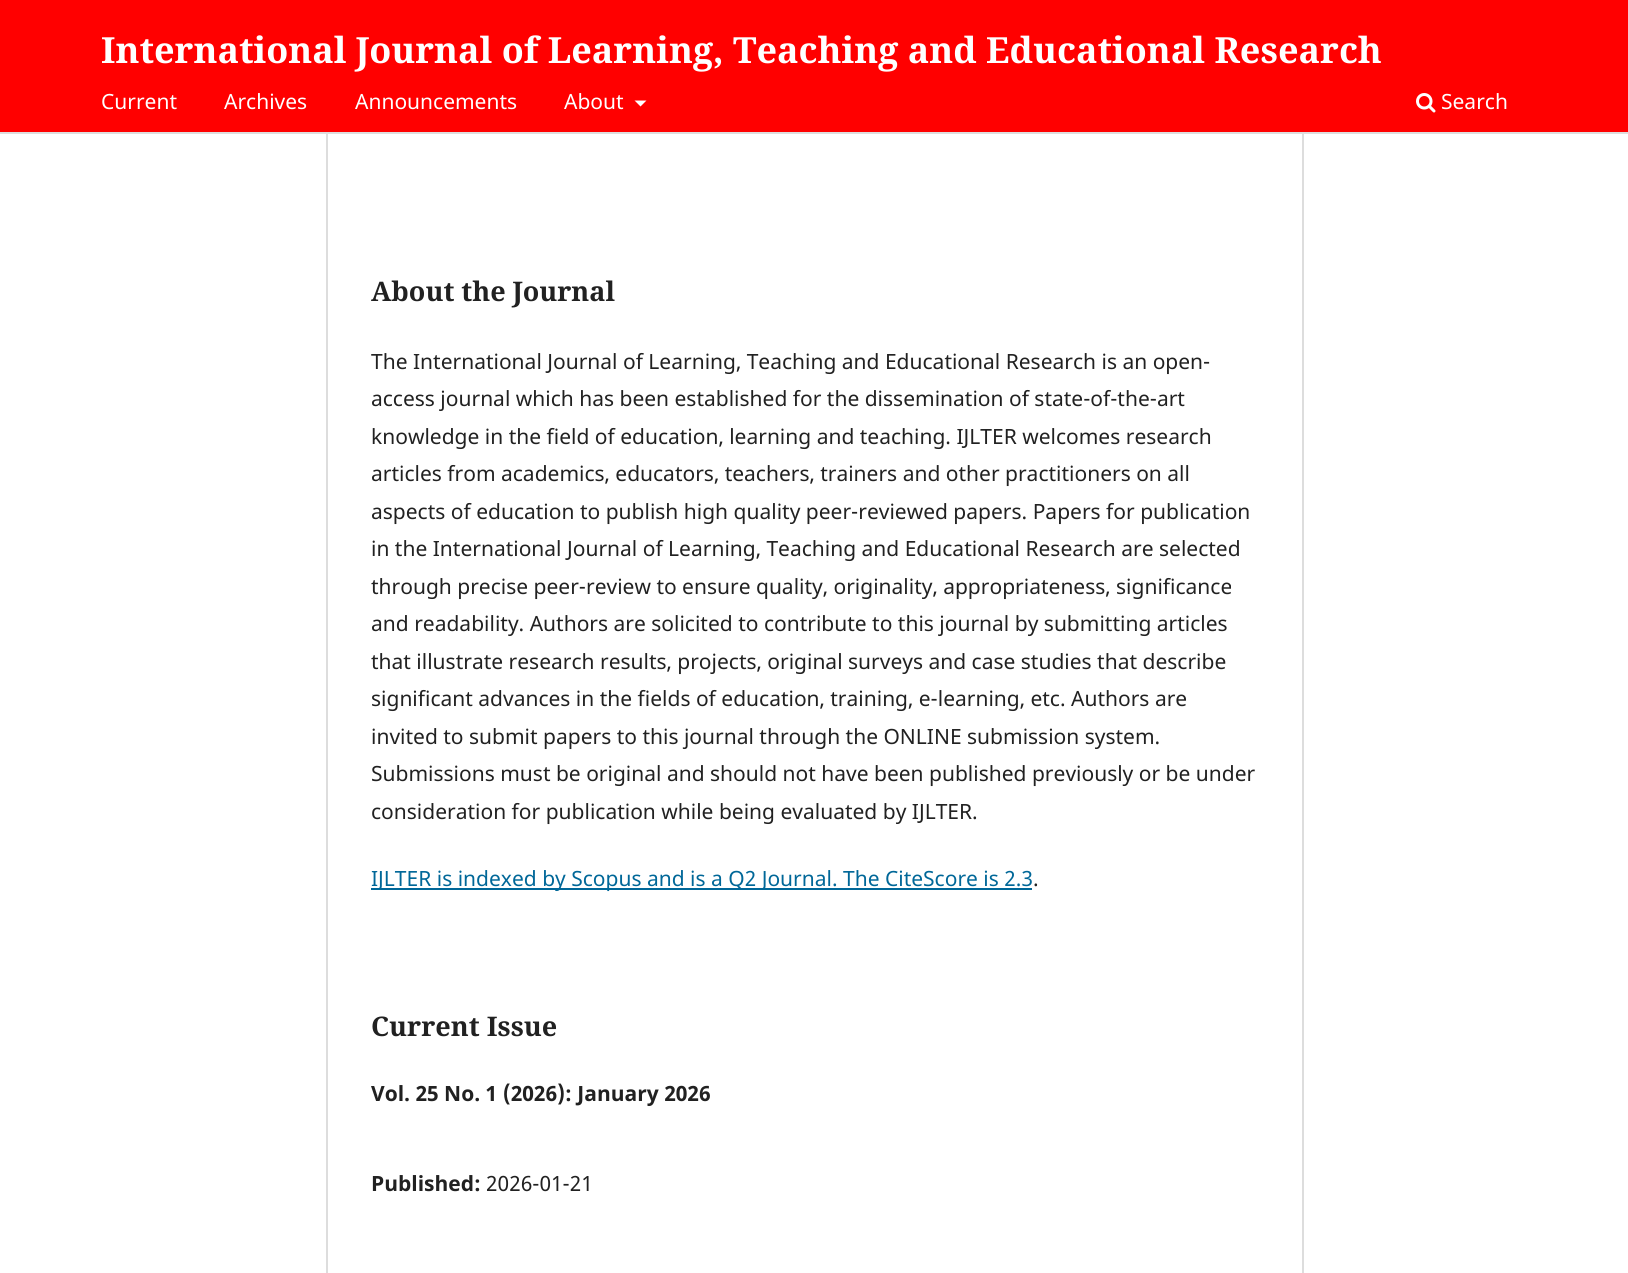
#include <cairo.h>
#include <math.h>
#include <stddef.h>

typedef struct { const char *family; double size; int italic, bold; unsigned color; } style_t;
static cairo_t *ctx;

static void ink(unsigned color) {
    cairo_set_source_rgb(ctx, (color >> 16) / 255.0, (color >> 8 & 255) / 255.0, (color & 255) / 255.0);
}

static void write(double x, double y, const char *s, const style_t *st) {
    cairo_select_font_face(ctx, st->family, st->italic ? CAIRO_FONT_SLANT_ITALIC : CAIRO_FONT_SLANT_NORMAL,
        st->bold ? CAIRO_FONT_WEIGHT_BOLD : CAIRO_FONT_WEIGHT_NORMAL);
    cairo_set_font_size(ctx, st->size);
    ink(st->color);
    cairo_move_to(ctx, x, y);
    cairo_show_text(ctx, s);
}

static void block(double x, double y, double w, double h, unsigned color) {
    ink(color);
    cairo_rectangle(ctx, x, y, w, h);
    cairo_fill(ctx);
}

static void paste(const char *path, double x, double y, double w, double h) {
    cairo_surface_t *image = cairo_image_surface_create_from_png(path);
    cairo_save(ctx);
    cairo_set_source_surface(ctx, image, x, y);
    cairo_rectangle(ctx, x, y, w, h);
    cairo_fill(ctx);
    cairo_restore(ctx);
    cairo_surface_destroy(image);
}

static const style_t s1 = {"Noto Serif", 36, 0, 1, 0xffffff};
static const style_t s2 = {"Noto Sans", 21, 0, 0, 0xffffff};
static const style_t s3 = {"Noto Serif", 27, 0, 1, 0x212121};
static const style_t s4 = {"Noto Sans", 21, 0, 0, 0x212121};
static const style_t s5 = {"Noto Sans", 21, 0, 0, 0x006798};
static const style_t s6 = {"Noto Sans", 21, 0, 1, 0x212121};

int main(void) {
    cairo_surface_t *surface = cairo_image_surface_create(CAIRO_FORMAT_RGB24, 1628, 1273);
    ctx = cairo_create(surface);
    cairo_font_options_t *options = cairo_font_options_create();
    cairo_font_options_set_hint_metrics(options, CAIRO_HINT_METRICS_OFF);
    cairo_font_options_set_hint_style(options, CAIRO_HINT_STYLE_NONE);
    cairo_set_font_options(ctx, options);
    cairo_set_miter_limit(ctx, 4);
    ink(0xffffff);
    cairo_paint(ctx);
    block(0, 0, 1628, 132, 0xff0000);
    block(0, 132, 1628, 2, 0xdddddd);
    write(101, 63, "International Journal of Learning, Teaching and Educational Research", &s1);
    write(101, 109, "Current", &s2);
    write(224, 109, "Archives", &s2);
    write(355, 109, "Announcements", &s2);
    write(564, 109, "About", &s2);
    cairo_new_path(ctx);
    cairo_move_to(ctx, 634.5, 100.5);
    cairo_line_to(ctx, 646.5, 100.5);
    cairo_line_to(ctx, 640.5, 106.5);
    cairo_close_path(ctx);
    cairo_fill(ctx);
    paste("pic1.png", 1416, 93, 20, 20);
    write(1441, 109, "Search", &s2);
    block(326, 134, 2, 1139, 0xdddddd);
    write(371, 301, "About the Journal", &s3);
    write(371, 369, "The International Journal of Learning, Teaching and Educational Research is an open-", &s4);
    write(371, 406, "access journal which has been established for the dissemination of state-of-the-art", &s4);
    write(371, 444, "knowledge in the field of education, learning and teaching. IJLTER welcomes research", &s4);
    write(371, 481, "articles from academics, educators, teachers, trainers and other practitioners on all", &s4);
    write(371, 519, "aspects of education to publish high quality peer-reviewed papers. Papers for publication", &s4);
    write(371, 556, "in the International Journal of Learning, Teaching and Educational Research are selected", &s4);
    write(371, 594, "through precise peer-review to ensure quality, originality, appropriateness, significance", &s4);
    write(371, 631, "and readability. Authors are solicited to contribute to this journal by submitting articles", &s4);
    write(371, 669, "that illustrate research results, projects, original surveys and case studies that describe", &s4);
    write(371, 706, "significant advances in the fields of education, training, e-learning, etc. Authors are", &s4);
    write(371, 744, "invited to submit papers to this journal through the ONLINE submission system.", &s4);
    write(371, 781, "Submissions must be original and should not have been published previously or be under", &s4);
    write(371, 819, "consideration for publication while being evaluated by IJLTER.", &s4);
    block(371, 888, 661, 2, 0x006798);
    write(371, 886, "IJLTER is indexed by Scopus and is a Q2 Journal. The CiteScore is 2.3", &s5);
    write(1033, 886, ".", &s4);
    write(371, 1036, "Current Issue", &s3);
    write(371, 1101, "Vol. 25 No. 1 (2026): January 2026", &s6);
    write(371, 1191, "Published:", &s6);
    write(486, 1191, "2026-01-21", &s4);
    block(1302, 134, 2, 1139, 0xdddddd);
    cairo_surface_write_to_png(surface, "screenshot.png");
    cairo_font_options_destroy(options);
    cairo_destroy(ctx);
    cairo_surface_destroy(surface);
    return 0;
}
